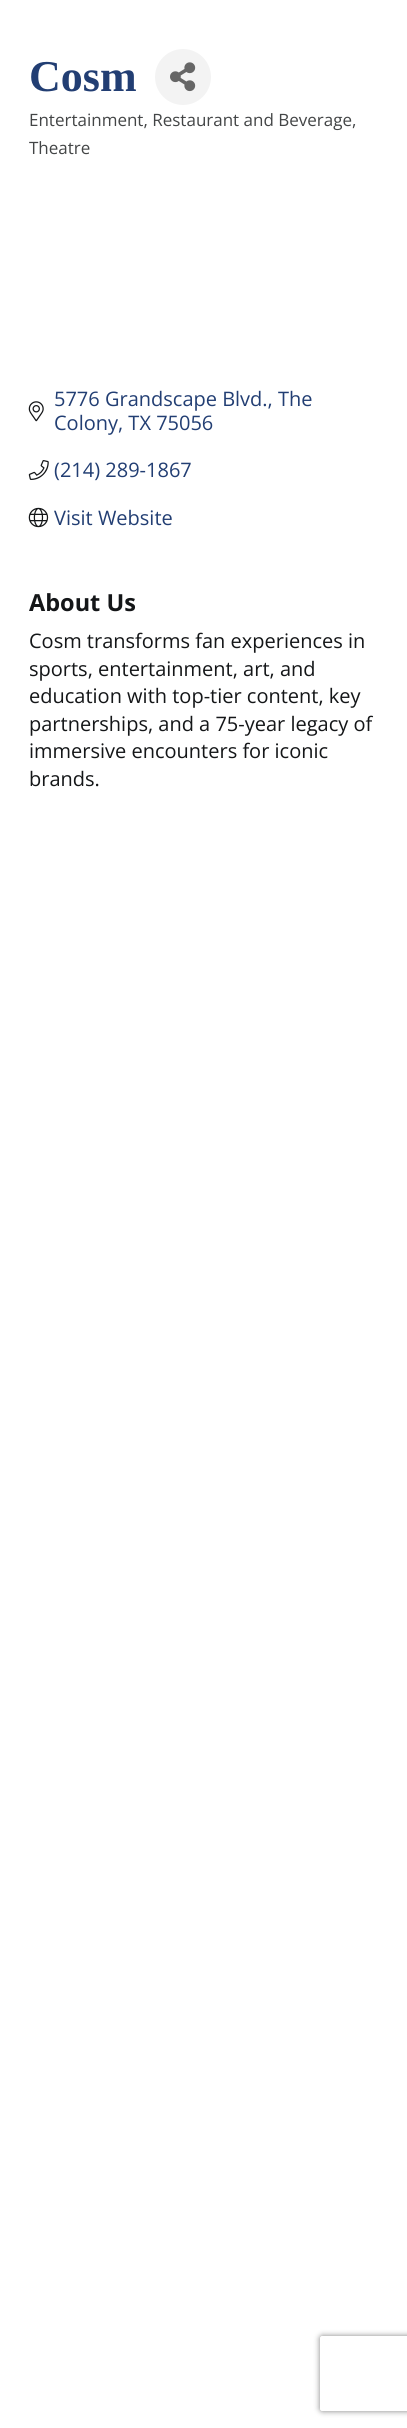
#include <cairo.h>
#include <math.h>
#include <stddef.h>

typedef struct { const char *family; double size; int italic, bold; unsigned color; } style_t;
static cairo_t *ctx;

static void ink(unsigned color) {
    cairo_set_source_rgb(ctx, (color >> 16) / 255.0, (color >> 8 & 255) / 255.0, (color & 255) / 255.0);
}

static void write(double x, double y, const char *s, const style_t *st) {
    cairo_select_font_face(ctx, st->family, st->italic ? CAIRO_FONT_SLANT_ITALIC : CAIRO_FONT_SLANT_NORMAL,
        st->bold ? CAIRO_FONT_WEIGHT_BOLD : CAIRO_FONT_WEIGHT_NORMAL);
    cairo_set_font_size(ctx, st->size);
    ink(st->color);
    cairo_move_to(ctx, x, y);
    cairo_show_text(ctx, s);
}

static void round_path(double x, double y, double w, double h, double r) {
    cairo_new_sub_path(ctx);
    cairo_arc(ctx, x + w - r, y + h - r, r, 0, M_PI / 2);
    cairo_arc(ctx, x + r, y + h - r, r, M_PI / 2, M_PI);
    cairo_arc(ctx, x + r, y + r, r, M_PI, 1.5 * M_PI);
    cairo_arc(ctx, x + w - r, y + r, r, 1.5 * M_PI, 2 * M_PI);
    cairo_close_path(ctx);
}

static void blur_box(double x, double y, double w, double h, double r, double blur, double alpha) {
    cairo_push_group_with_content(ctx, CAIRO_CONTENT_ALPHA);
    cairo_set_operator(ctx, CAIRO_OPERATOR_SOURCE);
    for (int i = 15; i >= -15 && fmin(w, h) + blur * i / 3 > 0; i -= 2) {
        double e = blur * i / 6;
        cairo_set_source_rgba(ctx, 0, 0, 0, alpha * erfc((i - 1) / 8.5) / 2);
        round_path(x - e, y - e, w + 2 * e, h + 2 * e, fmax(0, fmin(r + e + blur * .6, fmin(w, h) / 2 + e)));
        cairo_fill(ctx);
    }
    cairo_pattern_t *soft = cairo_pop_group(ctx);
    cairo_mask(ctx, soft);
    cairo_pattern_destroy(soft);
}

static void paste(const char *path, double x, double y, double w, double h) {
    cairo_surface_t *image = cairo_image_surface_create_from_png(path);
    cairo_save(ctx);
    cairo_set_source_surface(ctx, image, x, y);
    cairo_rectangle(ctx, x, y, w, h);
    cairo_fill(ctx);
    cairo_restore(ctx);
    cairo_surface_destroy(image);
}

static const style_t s1 = {"Liberation Serif", 44, 0, 1, 0x223e73};
static const style_t s2 = {"Open Sans", 17, 0, 0, 0x434546};
static const style_t s3 = {"Open Sans", 20, 0, 0, 0x223e73};
static const style_t s4 = {"Open Sans", 23.5, 0, 1, 0x141618};
static const style_t s5 = {"Open Sans", 20, 0, 0, 0x141618};

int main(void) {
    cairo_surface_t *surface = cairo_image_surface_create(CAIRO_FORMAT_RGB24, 407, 2428);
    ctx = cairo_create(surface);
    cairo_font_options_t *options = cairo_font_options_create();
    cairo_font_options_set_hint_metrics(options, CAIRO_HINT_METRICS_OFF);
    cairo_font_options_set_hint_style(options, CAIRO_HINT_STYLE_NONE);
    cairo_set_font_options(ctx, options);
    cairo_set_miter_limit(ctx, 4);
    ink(0xffffff);
    cairo_paint(ctx);
    write(29, 91, "Cosm", &s1);
    ink(0xf3f3f3);
    cairo_new_path(ctx);
    cairo_arc(ctx, 183, 77, 28, 0, 2 * M_PI);
    cairo_fill(ctx);
    paste("pic1.png", 170, 62, 26, 30);
    write(29, 126, "Entertainment, Restaurant and Beverage,", &s2);
    write(29, 154, "Theatre", &s2);
    paste("pic2.png", 28, 401, 16, 21);
    write(54, 406, "5776 Grandscape Blvd., The", &s3);
    write(54, 430, "Colony, TX 75056", &s3);
    paste("pic3.png", 28, 460, 21, 20);
    write(54, 477, "(214) 289-1867", &s3);
    paste("pic4.png", 28, 507, 21, 21);
    write(54, 525, "Visit Website", &s3);
    write(29, 611, "About Us", &s4);
    write(29, 648, "Cosm transforms fan experiences in", &s5);
    write(29, 676, "sports, entertainment, art, and", &s5);
    write(29, 703, "education with top-tier content, key", &s5);
    write(29, 731, "partnerships, and a 75-year legacy of", &s5);
    write(29, 758, "immersive encounters for iconic", &s5);
    write(29, 786, "brands.", &s5);
    cairo_save(ctx);
    cairo_set_fill_rule(ctx, CAIRO_FILL_RULE_EVEN_ODD);
    cairo_new_path(ctx);
    cairo_move_to(ctx, 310, 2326);
    cairo_line_to(ctx, 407, 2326);
    cairo_line_to(ctx, 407, 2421);
    cairo_line_to(ctx, 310, 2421);
    cairo_close_path(ctx);
    cairo_move_to(ctx, 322.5, 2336);
    cairo_line_to(ctx, 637.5, 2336);
    cairo_curve_to(ctx, 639, 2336, 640, 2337, 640, 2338.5);
    cairo_line_to(ctx, 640, 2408.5);
    cairo_curve_to(ctx, 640, 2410, 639, 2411, 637.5, 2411);
    cairo_line_to(ctx, 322.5, 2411);
    cairo_curve_to(ctx, 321, 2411, 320, 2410, 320, 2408.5);
    cairo_line_to(ctx, 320, 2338.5);
    cairo_curve_to(ctx, 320, 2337, 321, 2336, 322.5, 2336);
    cairo_close_path(ctx);
    cairo_clip(ctx);
    ink(0x808080);
    blur_box(320, 2336, 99, 75, 2.5, 3, 1);
    cairo_restore(ctx);
    cairo_surface_write_to_png(surface, "screenshot.png");
    cairo_font_options_destroy(options);
    cairo_destroy(ctx);
    cairo_surface_destroy(surface);
    return 0;
}
